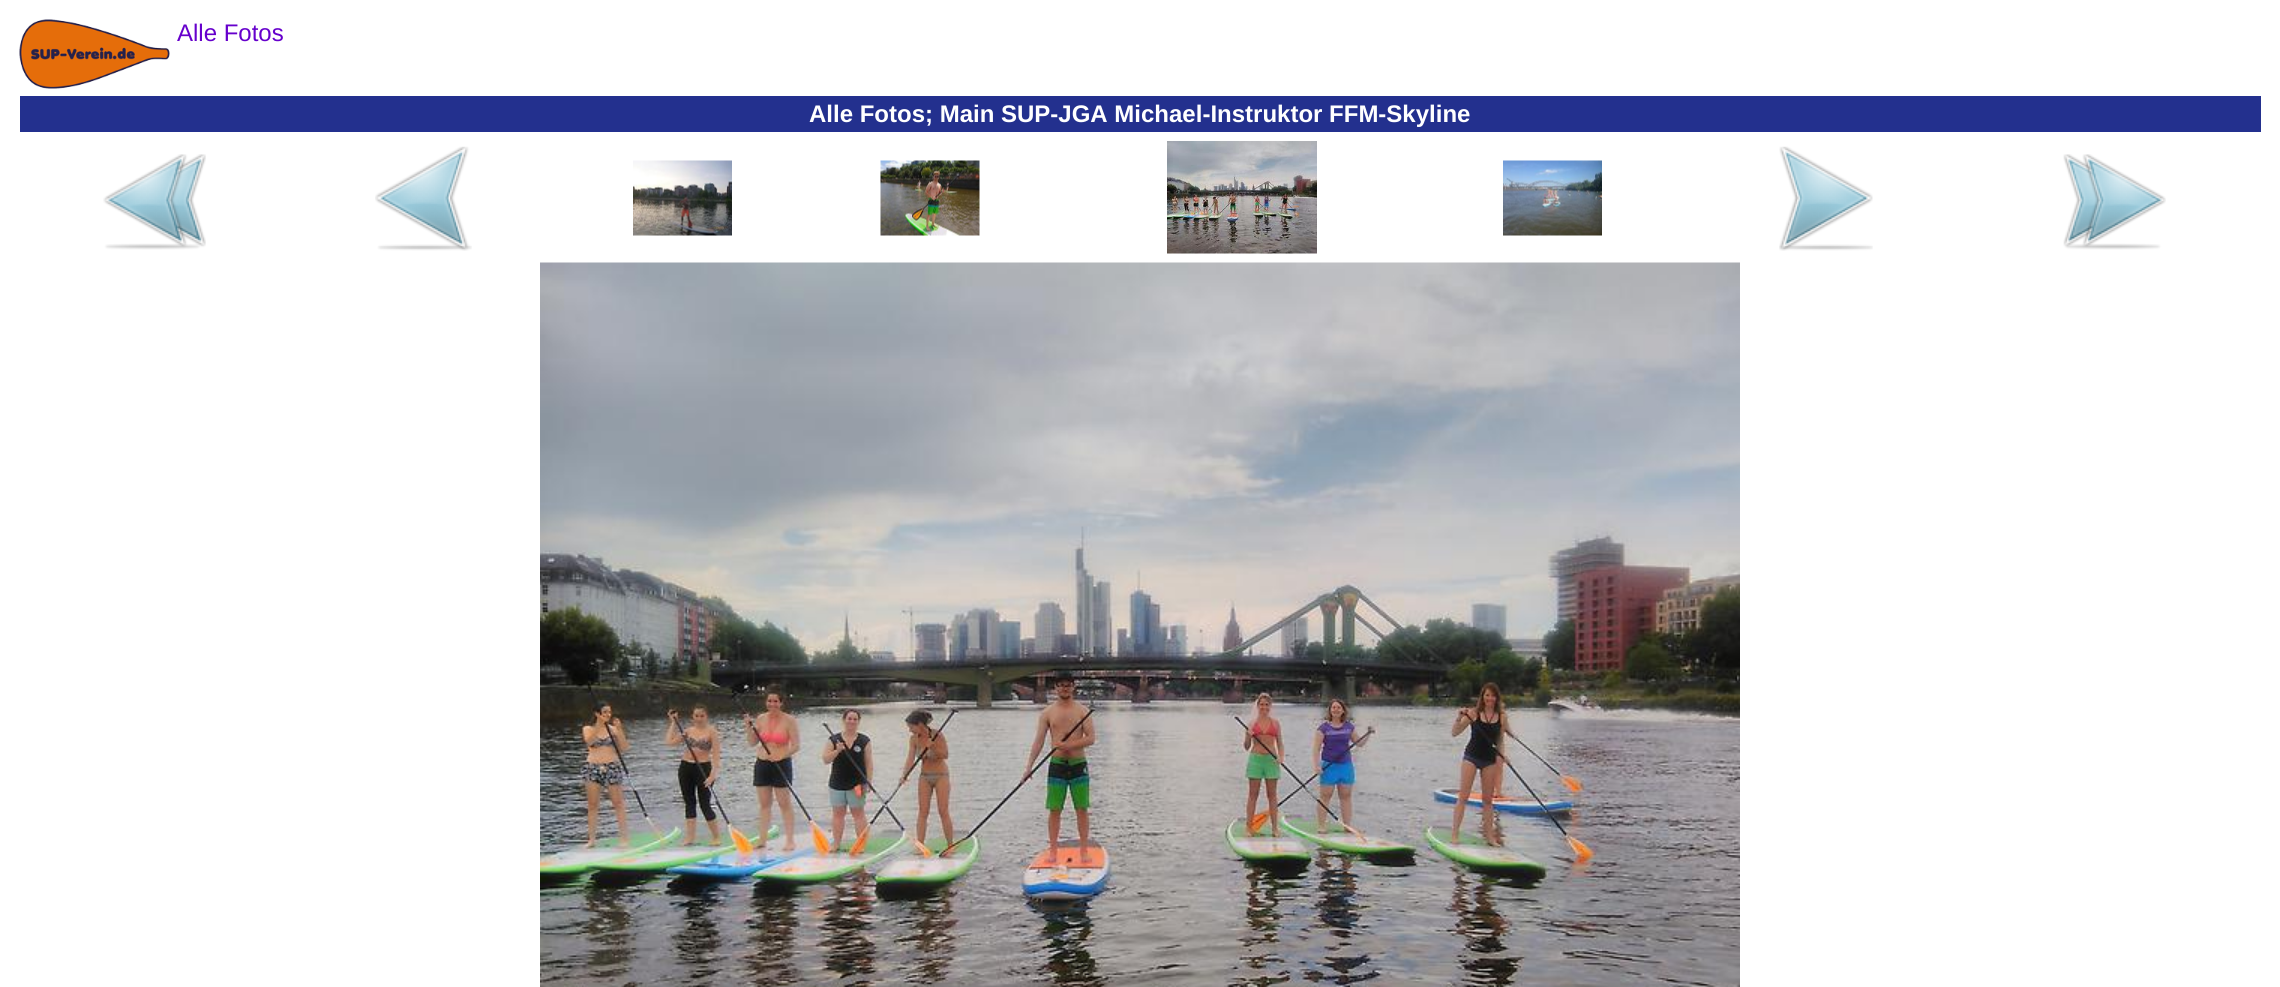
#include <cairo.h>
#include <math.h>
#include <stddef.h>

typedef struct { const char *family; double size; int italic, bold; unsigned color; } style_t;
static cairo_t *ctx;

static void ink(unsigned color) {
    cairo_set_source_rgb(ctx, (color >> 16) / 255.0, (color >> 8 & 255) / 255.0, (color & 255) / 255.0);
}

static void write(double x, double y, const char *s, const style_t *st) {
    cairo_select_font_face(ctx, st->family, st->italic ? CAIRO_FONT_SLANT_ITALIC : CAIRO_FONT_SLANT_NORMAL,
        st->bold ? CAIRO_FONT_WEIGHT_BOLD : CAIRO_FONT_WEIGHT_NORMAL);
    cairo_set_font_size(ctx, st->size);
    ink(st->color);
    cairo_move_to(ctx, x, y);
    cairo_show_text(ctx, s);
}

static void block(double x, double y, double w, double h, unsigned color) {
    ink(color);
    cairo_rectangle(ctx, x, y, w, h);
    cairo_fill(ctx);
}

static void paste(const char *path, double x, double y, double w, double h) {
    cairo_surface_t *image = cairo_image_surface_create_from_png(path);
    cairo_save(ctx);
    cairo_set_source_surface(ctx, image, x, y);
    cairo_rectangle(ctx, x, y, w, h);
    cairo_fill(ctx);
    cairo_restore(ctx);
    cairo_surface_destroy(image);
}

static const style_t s1 = {"Liberation Sans", 24, 0, 0, 0x6600cc};
static const style_t s2 = {"Liberation Sans", 24, 0, 1, 0xffffff};

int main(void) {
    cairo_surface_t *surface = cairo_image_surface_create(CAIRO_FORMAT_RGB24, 2280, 987);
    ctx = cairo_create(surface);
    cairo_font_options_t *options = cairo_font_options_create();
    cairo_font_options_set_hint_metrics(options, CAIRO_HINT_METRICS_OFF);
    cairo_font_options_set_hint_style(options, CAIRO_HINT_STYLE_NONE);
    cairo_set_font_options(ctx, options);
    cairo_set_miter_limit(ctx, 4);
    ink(0xffffff);
    cairo_paint(ctx);
    paste("pic1.png", 19, 19, 151, 70);
    write(177, 41, "Alle Fotos", &s1);
    block(20, 96, 2241, 36, 0x23308e);
    write(809, 122, "Alle Fotos; Main SUP-JGA Michael-Instruktor FFM-Skyline", &s2);
    paste("pic2.png", 103, 154, 103, 96);
    paste("pic3.png", 375, 146, 97, 105);
    paste("pic4.png", 633, 160, 99, 76);
    paste("pic5.png", 880, 160, 100, 76);
    paste("pic6.png", 1167, 141, 150, 113);
    paste("pic7.png", 1503, 160, 99, 76);
    paste("pic8.png", 1779, 146, 94, 105);
    paste("pic9.png", 2063, 154, 103, 96);
    paste("pic10.png", 540, 262, 1200, 725);
    cairo_surface_write_to_png(surface, "screenshot.png");
    cairo_font_options_destroy(options);
    cairo_destroy(ctx);
    cairo_surface_destroy(surface);
    return 0;
}
